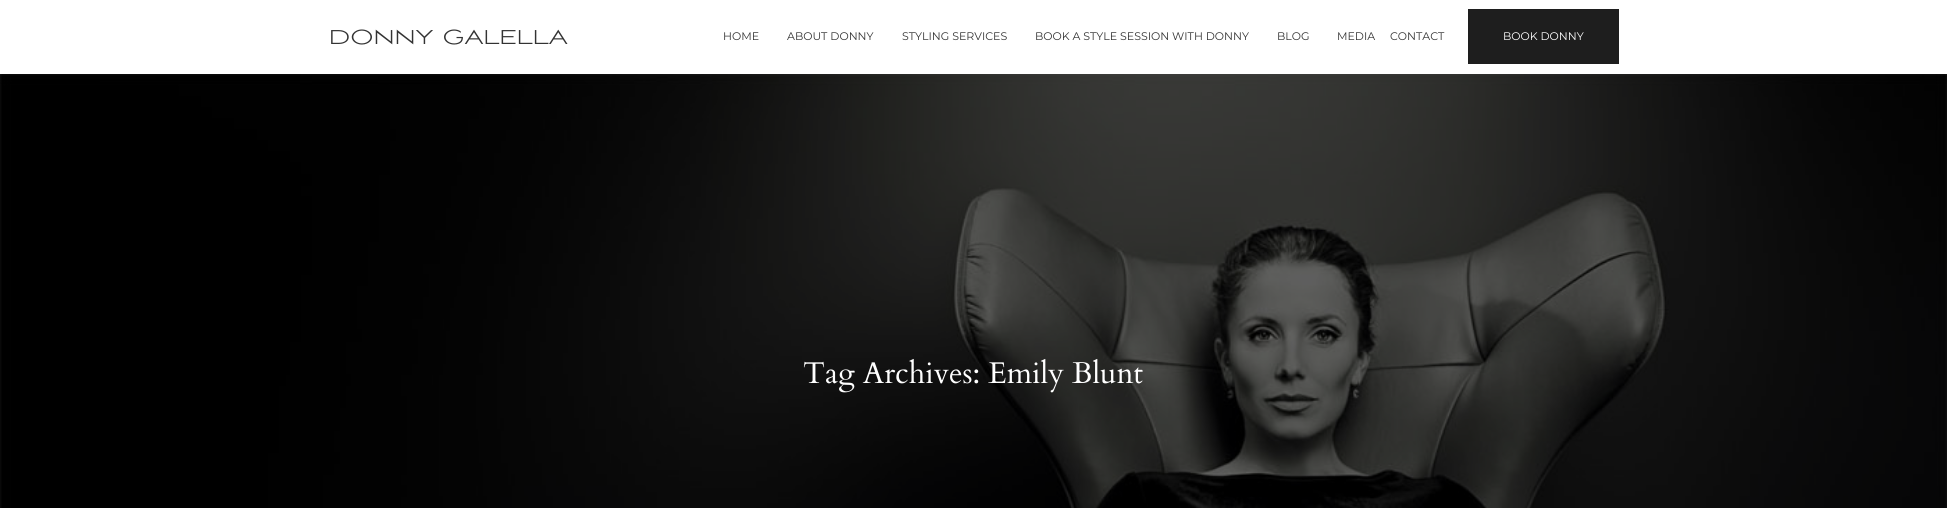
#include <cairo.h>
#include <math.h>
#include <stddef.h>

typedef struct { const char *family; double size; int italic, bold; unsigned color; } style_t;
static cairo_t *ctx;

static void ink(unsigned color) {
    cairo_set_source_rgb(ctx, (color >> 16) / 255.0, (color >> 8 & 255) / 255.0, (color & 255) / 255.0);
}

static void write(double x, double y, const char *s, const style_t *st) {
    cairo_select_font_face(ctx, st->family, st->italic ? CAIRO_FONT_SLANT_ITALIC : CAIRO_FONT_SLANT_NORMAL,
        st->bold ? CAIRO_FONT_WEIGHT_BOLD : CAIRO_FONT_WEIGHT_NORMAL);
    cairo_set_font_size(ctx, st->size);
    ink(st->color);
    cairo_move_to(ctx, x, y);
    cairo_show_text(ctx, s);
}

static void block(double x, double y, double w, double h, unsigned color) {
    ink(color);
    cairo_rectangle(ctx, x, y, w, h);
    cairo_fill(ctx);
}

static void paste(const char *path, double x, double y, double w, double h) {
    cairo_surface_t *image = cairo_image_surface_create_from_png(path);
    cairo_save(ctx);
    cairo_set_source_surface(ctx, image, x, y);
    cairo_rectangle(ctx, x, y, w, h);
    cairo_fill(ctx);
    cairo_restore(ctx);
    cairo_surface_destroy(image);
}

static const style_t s1 = {"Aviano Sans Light", 25, 0, 0, 0x333333};
static const style_t s2 = {"Montserrat", 11, 0, 0, 0x333333};
static const style_t s3 = {"Montserrat", 11, 0, 0, 0xffffff};
static const style_t s4 = {"Cardo", 30, 0, 0, 0xffffff};

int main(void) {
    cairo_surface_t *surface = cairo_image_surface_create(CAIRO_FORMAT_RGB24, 1947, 508);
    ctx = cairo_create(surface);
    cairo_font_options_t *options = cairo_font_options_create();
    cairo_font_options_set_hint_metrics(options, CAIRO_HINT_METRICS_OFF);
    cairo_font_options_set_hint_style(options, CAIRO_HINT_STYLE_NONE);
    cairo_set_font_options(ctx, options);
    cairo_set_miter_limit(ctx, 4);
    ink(0xffffff);
    cairo_paint(ctx);
    write(329, 44, "DONNY GALELLA", &s1);
    write(723, 40, "HOME", &s2);
    write(787, 40, "ABOUT DONNY", &s2);
    write(902, 40, "STYLING SERVICES", &s2);
    write(1035, 40, "BOOK A STYLE SESSION WITH DONNY", &s2);
    write(1277, 40, "BLOG", &s2);
    write(1337, 40, "MEDIA", &s2);
    write(1390, 40, "CONTACT", &s2);
    block(1468, 9, 151, 55, 0x1e1e1e);
    write(1503, 40, "BOOK DONNY", &s3);
    paste("pic1.png", 0, 74, 1947, 434);
    write(803, 383, "Tag Archives: Emily Blunt", &s4);
    cairo_surface_write_to_png(surface, "screenshot.png");
    cairo_font_options_destroy(options);
    cairo_destroy(ctx);
    cairo_surface_destroy(surface);
    return 0;
}
